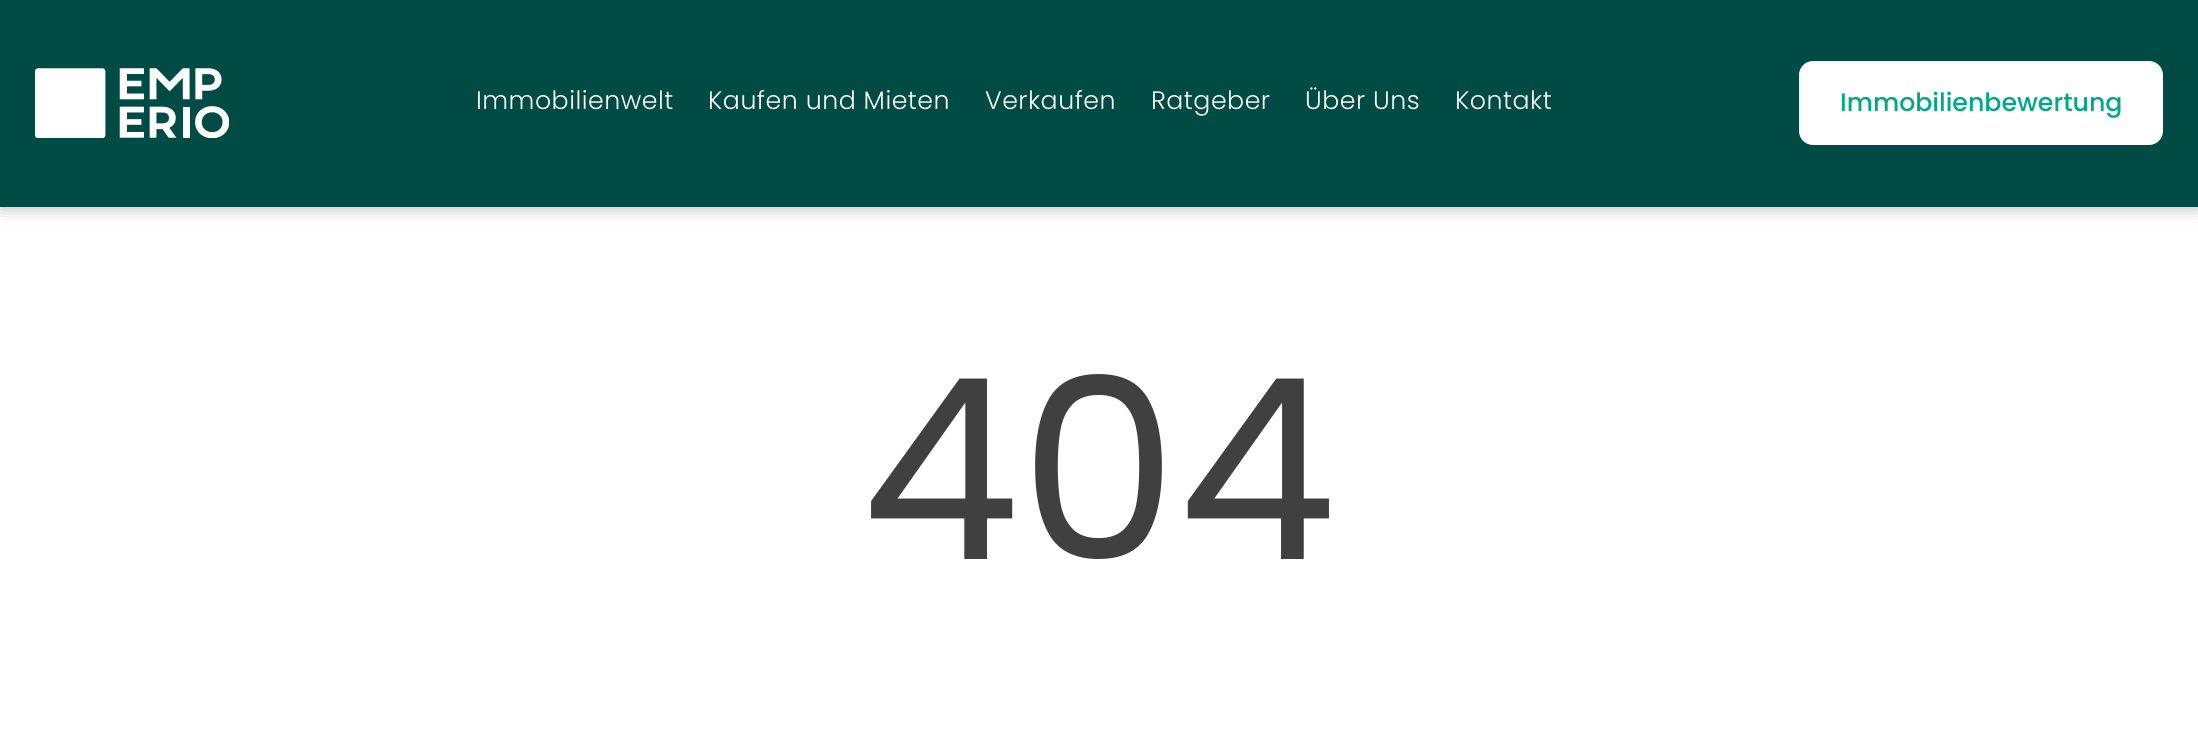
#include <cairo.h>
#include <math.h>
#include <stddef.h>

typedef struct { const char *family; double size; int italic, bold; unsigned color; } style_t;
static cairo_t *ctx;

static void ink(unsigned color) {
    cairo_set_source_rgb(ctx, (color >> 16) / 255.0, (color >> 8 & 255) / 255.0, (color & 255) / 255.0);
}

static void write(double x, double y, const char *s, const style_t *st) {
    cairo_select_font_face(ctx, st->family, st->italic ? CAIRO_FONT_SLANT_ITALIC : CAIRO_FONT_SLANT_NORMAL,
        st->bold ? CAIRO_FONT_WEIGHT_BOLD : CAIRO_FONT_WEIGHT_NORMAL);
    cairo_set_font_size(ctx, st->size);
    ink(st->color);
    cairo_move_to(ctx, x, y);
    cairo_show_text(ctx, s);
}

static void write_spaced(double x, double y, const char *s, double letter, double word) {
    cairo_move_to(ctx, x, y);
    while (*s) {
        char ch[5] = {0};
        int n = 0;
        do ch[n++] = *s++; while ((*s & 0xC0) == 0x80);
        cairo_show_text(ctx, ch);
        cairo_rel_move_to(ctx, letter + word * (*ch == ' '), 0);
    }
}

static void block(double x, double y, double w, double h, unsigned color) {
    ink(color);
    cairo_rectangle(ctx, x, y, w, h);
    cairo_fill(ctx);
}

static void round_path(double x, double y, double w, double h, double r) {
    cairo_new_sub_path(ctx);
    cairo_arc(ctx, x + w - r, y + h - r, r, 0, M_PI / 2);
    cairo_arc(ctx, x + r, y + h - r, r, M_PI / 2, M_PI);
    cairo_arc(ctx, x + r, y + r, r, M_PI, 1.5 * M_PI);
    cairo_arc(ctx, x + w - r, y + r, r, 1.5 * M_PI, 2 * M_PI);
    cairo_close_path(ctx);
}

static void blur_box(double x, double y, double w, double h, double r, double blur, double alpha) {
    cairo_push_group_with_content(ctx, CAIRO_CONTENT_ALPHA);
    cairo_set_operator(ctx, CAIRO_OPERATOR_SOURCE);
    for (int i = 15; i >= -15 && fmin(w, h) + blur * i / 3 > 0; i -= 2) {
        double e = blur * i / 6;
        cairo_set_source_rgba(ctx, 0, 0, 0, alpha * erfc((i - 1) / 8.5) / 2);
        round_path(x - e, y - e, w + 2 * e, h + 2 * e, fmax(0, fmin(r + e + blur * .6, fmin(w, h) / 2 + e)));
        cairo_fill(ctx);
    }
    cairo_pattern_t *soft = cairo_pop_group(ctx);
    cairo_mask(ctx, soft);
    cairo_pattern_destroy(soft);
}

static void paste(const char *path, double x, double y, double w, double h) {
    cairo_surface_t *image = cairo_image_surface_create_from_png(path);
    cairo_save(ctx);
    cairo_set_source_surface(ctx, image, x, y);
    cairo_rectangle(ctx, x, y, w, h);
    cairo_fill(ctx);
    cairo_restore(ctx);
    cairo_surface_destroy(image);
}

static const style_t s1 = {"Poppins Medium", 25.25, 0, 0, 0x00a887};
static const style_t s2 = {"Poppins", 252, 0, 0, 0x404040};

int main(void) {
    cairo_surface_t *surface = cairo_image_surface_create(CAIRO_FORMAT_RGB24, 2198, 753);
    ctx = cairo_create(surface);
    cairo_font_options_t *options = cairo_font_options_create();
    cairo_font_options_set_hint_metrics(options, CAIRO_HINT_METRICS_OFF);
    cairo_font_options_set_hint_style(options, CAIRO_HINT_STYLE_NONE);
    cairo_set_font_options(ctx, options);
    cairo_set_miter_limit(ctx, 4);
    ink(0xffffff);
    cairo_paint(ctx);
    ink(0x000000);
    blur_box(0, 0, 2198, 207, 0, 9, 0.3);
    block(0, 0, 2198, 207, 0x004c45);
    paste("pic1.png", 35, 68, 194, 70);
    cairo_select_font_face(ctx, "Poppins Light", CAIRO_FONT_SLANT_NORMAL, CAIRO_FONT_WEIGHT_NORMAL);
    cairo_set_font_size(ctx, 25.25);
    ink(0xffffff);
    write_spaced(476, 109, "Immobilienwelt", 0.5, 0);
    write_spaced(708, 109, "Kaufen und Mieten", 0.5, 0);
    write_spaced(985, 109, "Verkaufen", 0.5, 0);
    write_spaced(1151, 109, "Ratgeber", 0.5, 0);
    write_spaced(1305, 109, "Über Uns", 0.5, 0);
    write_spaced(1455, 109, "Kontakt", 0.5, 0);
    round_path(1801, 63, 360, 80, 12);
    cairo_fill_preserve(ctx);
    cairo_set_line_width(ctx, 4);
    cairo_stroke(ctx);
    write(1840, 111, "Immobilienbewertung", &s1);
    write(861, 559, "404", &s2);
    cairo_surface_write_to_png(surface, "screenshot.png");
    cairo_font_options_destroy(options);
    cairo_destroy(ctx);
    cairo_surface_destroy(surface);
    return 0;
}
